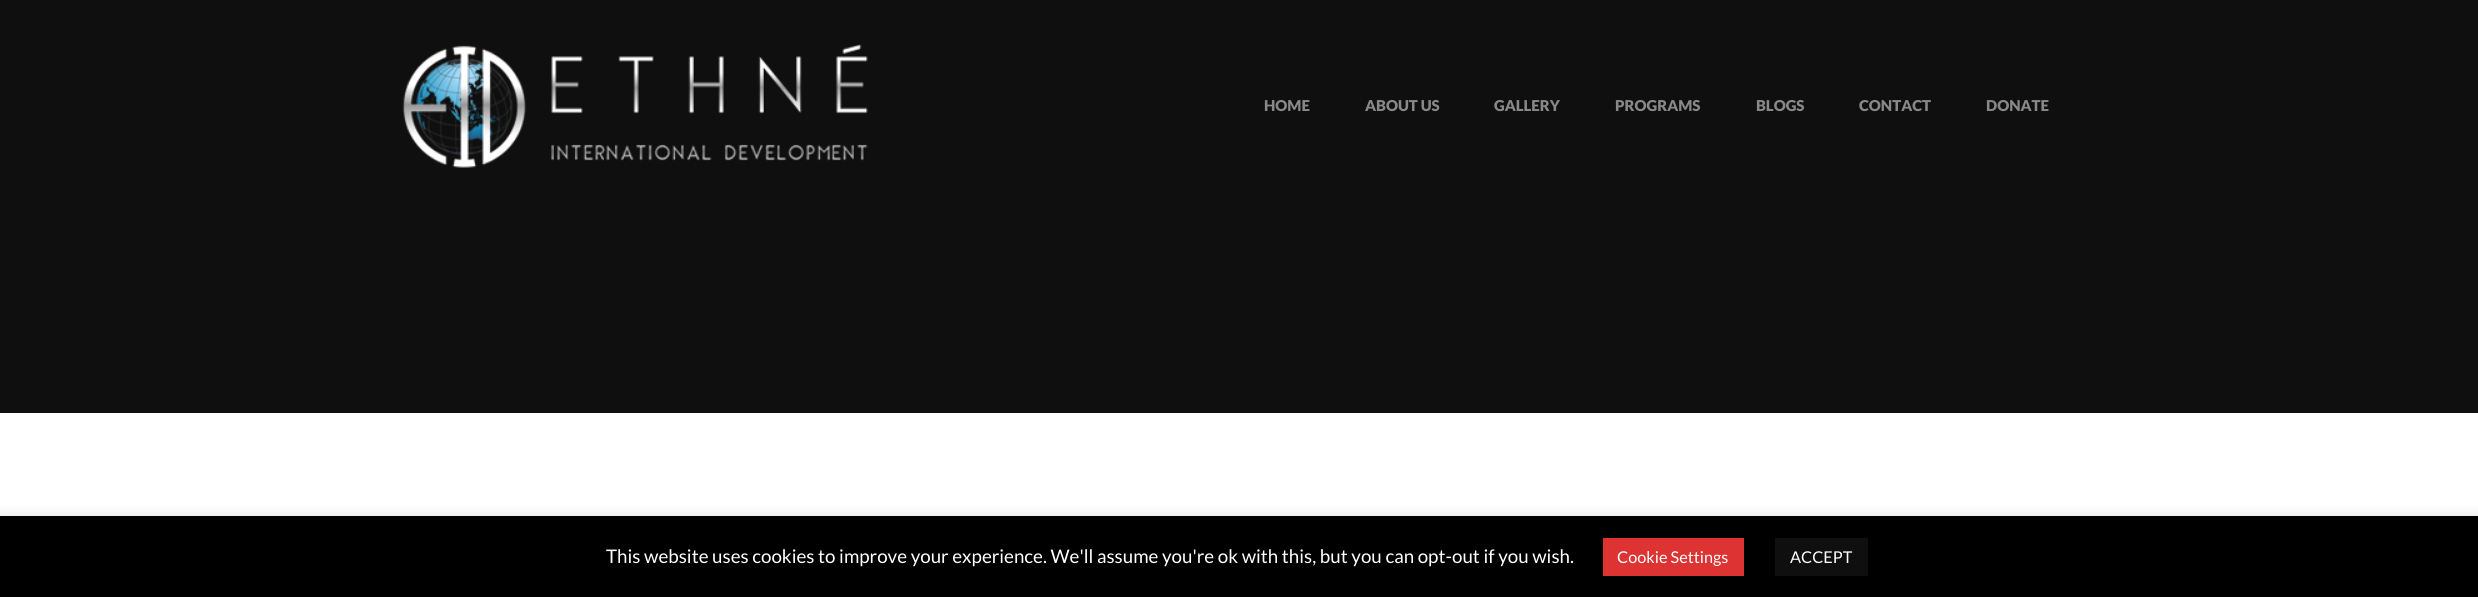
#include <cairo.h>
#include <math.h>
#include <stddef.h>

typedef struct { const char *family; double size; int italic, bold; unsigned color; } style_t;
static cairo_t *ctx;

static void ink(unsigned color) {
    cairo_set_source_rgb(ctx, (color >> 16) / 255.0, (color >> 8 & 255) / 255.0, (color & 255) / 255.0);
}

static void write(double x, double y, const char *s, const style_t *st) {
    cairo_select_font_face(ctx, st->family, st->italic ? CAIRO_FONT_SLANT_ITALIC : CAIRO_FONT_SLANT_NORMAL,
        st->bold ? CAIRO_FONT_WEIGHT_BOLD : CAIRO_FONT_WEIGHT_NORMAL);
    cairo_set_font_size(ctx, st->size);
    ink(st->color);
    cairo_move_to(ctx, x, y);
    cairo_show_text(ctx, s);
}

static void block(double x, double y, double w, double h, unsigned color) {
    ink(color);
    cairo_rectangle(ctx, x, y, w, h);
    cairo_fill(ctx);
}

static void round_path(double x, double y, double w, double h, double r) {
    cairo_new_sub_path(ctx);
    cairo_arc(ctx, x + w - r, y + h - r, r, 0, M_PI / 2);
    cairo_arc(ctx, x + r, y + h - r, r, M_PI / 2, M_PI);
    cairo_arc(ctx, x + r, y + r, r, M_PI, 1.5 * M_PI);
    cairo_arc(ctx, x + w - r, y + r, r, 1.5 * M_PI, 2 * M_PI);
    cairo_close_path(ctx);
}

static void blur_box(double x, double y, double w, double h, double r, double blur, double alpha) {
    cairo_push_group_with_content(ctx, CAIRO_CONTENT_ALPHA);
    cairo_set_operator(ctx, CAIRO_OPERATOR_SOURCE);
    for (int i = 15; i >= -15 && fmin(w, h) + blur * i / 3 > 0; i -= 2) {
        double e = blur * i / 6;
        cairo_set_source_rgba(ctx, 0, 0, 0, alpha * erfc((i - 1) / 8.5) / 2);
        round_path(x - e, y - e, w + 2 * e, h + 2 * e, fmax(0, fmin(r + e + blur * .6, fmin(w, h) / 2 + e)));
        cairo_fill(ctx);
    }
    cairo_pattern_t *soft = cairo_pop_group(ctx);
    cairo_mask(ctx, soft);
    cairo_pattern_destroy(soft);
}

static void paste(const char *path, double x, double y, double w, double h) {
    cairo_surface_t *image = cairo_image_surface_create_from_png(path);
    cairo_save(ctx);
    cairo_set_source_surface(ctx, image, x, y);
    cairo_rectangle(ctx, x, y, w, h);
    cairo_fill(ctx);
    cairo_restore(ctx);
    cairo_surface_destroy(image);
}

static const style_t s1 = {"Lato Black", 15, 0, 0, 0x888888};
static const style_t s2 = {"Lato", 18.75, 0, 0, 0xffffff};
static const style_t s3 = {"Lato", 16.25, 0, 0, 0xffffff};

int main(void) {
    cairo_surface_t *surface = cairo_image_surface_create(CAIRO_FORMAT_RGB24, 2478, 597);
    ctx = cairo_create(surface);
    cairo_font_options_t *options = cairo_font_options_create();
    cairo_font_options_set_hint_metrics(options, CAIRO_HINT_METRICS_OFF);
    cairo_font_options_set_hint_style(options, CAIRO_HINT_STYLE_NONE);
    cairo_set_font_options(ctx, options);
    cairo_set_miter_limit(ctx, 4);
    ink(0xffffff);
    cairo_paint(ctx);
    block(0, 0, 2478, 413, 0x0f0f0f);
    paste("pic1.png", 402, 44, 466, 124);
    write(1264, 111, "HOME", &s1);
    write(1365, 111, "ABOUT US", &s1);
    write(1494, 111, "GALLERY", &s1);
    write(1615, 111, "PROGRAMS", &s1);
    write(1756, 111, "BLOGS", &s1);
    write(1859, 111, "CONTACT", &s1);
    write(1986, 111, "DONATE", &s1);
    ink(0xacabab);
    blur_box(0, 515, 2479, 81, 0, 6, 0.3);
    block(0, 516, 2478, 81, 0x000000);
    write(606, 563, "This website uses cookies to improve your experience. We'll assume you're ok with this, but you can opt-out if you wish.", &s2);
    block(1603, 538, 141, 38, 0xdd3333);
    write(1617, 563, "Cookie Settings", &s3);
    block(1775, 538, 93, 38, 0x0f0f0f);
    write(1790, 563, "ACCEPT", &s3);
    cairo_surface_write_to_png(surface, "screenshot.png");
    cairo_font_options_destroy(options);
    cairo_destroy(ctx);
    cairo_surface_destroy(surface);
    return 0;
}
